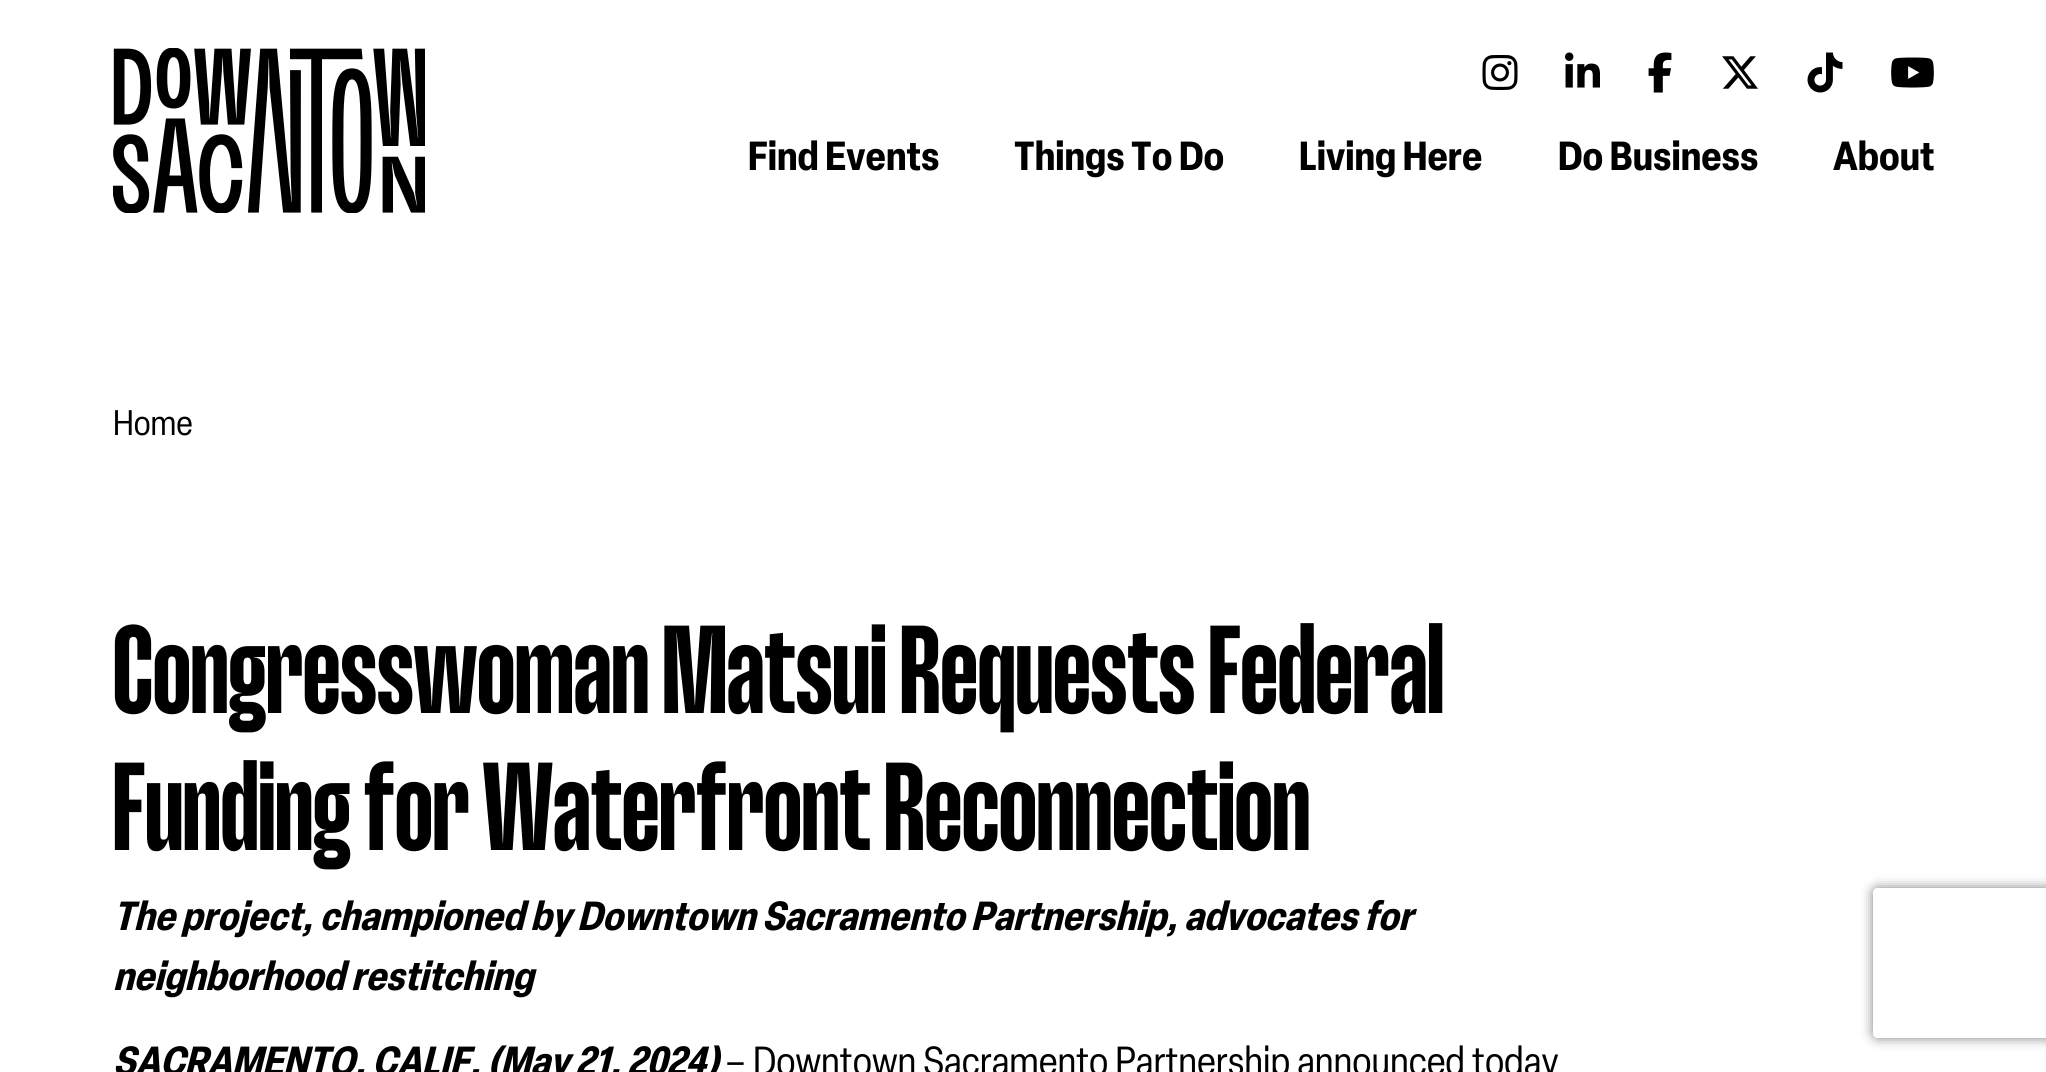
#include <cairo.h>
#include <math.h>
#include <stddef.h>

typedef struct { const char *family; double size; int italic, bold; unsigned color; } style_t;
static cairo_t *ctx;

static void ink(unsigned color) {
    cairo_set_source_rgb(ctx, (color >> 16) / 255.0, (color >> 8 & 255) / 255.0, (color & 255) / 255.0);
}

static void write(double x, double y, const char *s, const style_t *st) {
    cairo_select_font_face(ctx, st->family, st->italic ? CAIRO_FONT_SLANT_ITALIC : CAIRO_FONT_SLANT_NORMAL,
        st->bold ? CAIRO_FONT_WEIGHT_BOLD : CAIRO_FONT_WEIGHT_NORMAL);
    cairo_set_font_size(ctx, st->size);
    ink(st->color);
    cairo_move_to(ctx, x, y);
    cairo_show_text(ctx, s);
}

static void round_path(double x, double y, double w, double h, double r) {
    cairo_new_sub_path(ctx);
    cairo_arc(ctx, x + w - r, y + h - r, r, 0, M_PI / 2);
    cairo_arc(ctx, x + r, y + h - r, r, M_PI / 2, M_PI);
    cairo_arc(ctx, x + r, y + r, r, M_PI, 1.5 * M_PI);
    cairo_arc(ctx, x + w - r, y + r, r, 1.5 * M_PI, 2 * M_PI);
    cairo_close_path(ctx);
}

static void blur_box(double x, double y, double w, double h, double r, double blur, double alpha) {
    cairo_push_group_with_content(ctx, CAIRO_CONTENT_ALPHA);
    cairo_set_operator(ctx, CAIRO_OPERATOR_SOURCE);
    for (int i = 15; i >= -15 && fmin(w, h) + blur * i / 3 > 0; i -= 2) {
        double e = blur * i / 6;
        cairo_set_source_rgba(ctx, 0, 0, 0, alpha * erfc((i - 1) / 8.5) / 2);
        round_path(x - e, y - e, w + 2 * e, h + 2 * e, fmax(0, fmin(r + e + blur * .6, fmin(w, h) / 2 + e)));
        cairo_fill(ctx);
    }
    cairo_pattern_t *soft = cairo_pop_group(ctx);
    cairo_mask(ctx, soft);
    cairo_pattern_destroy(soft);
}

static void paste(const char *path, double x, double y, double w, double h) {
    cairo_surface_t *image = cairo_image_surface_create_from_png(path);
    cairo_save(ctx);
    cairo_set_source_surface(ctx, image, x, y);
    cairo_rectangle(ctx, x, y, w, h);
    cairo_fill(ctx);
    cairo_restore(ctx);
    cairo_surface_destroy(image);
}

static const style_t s1 = {"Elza", 40, 0, 1, 0x000000};
static const style_t s2 = {"Elza", 35, 0, 0, 0x000000};
static const style_t s3 = {"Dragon", 125, 0, 1, 0x000000};
static const style_t s4 = {"Elza", 40, 1, 1, 0x000000};
static const style_t s5 = {"Elza", 40, 0, 0, 0x000000};

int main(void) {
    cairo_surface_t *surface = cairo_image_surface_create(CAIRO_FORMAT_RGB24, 2046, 1072);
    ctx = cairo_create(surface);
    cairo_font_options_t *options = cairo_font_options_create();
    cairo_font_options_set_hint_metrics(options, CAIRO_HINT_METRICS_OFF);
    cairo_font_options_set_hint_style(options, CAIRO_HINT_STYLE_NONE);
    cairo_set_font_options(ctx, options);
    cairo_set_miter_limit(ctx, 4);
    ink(0xffffff);
    cairo_paint(ctx);
    paste("pic1.png", 113, 48, 312, 165);
    paste("pic2.png", 1482, 55, 36, 35);
    paste("pic3.png", 1565, 52, 35, 36);
    paste("pic4.png", 1648, 52, 24, 41);
    paste("pic5.png", 1722, 56, 36, 33);
    paste("pic6.png", 1807, 52, 36, 41);
    paste("pic7.png", 1891, 57, 43, 31);
    write(748, 170, "Find Events", &s1);
    write(1014, 170, "Things To Do", &s1);
    write(1299, 170, "Living Here", &s1);
    write(1558, 170, "Do Business", &s1);
    write(1833, 170, "About", &s1);
    write(113, 435, "Home", &s2);
    write(113, 713, "Congresswoman Matsui Requests Federal", &s3);
    write(113, 850, "Funding for Waterfront Reconnection", &s3);
    write(113, 930, "The project, championed by Downtown Sacramento Partnership, advocates for", &s4);
    write(113, 990, "neighborhood restitching", &s4);
    write(113, 1075, "SACRAMENTO, CALIF. (May 21, 2024)", &s4);
    write(725, 1075, "– Downtown Sacramento Partnership announced today", &s5);
    cairo_save(ctx);
    cairo_set_fill_rule(ctx, CAIRO_FILL_RULE_EVEN_ODD);
    cairo_new_path(ctx);
    cairo_move_to(ctx, 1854, 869);
    cairo_line_to(ctx, 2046, 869);
    cairo_line_to(ctx, 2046, 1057);
    cairo_line_to(ctx, 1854, 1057);
    cairo_close_path(ctx);
    cairo_move_to(ctx, 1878, 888);
    cairo_line_to(ctx, 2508, 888);
    cairo_curve_to(ctx, 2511, 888, 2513, 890, 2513, 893);
    cairo_line_to(ctx, 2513, 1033);
    cairo_curve_to(ctx, 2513, 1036, 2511, 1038, 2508, 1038);
    cairo_line_to(ctx, 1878, 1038);
    cairo_curve_to(ctx, 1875, 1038, 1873, 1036, 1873, 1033);
    cairo_line_to(ctx, 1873, 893);
    cairo_curve_to(ctx, 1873, 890, 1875, 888, 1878, 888);
    cairo_close_path(ctx);
    cairo_clip(ctx);
    ink(0x808080);
    blur_box(1873, 888, 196, 150, 5, 6, 1);
    cairo_restore(ctx);
    cairo_surface_write_to_png(surface, "screenshot.png");
    cairo_font_options_destroy(options);
    cairo_destroy(ctx);
    cairo_surface_destroy(surface);
    return 0;
}
